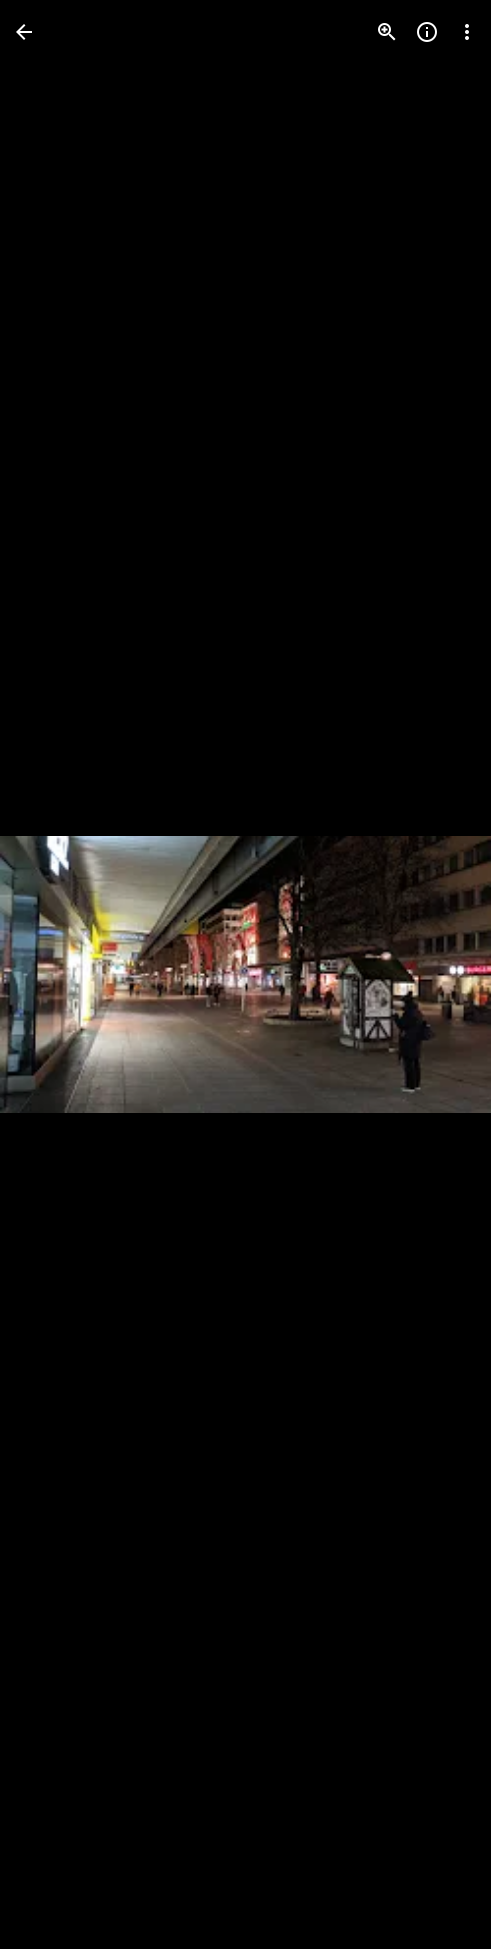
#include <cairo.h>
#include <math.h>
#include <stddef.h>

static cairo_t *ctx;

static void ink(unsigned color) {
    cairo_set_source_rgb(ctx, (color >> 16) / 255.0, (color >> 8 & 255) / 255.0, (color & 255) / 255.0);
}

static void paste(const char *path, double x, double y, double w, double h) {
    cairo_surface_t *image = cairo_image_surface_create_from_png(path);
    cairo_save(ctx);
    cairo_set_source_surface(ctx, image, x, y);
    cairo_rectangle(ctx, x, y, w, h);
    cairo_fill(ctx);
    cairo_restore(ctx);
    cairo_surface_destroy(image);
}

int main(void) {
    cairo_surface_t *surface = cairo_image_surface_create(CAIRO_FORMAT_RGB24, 491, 1949);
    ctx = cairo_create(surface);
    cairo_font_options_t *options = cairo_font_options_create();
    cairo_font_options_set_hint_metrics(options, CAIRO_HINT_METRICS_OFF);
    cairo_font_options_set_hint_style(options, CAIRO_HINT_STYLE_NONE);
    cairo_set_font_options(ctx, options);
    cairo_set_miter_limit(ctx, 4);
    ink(0x000000);
    cairo_paint(ctx);
    paste("pic1.png", 16, 24, 16, 16);
    paste("pic2.png", 378, 23, 18, 18);
    paste("pic3.png", 417, 22, 20, 20);
    paste("pic4.png", 465, 24, 4, 16);
    paste("pic5.png", 0, 836, 491, 277);
    cairo_surface_write_to_png(surface, "screenshot.png");
    cairo_font_options_destroy(options);
    cairo_destroy(ctx);
    cairo_surface_destroy(surface);
    return 0;
}
